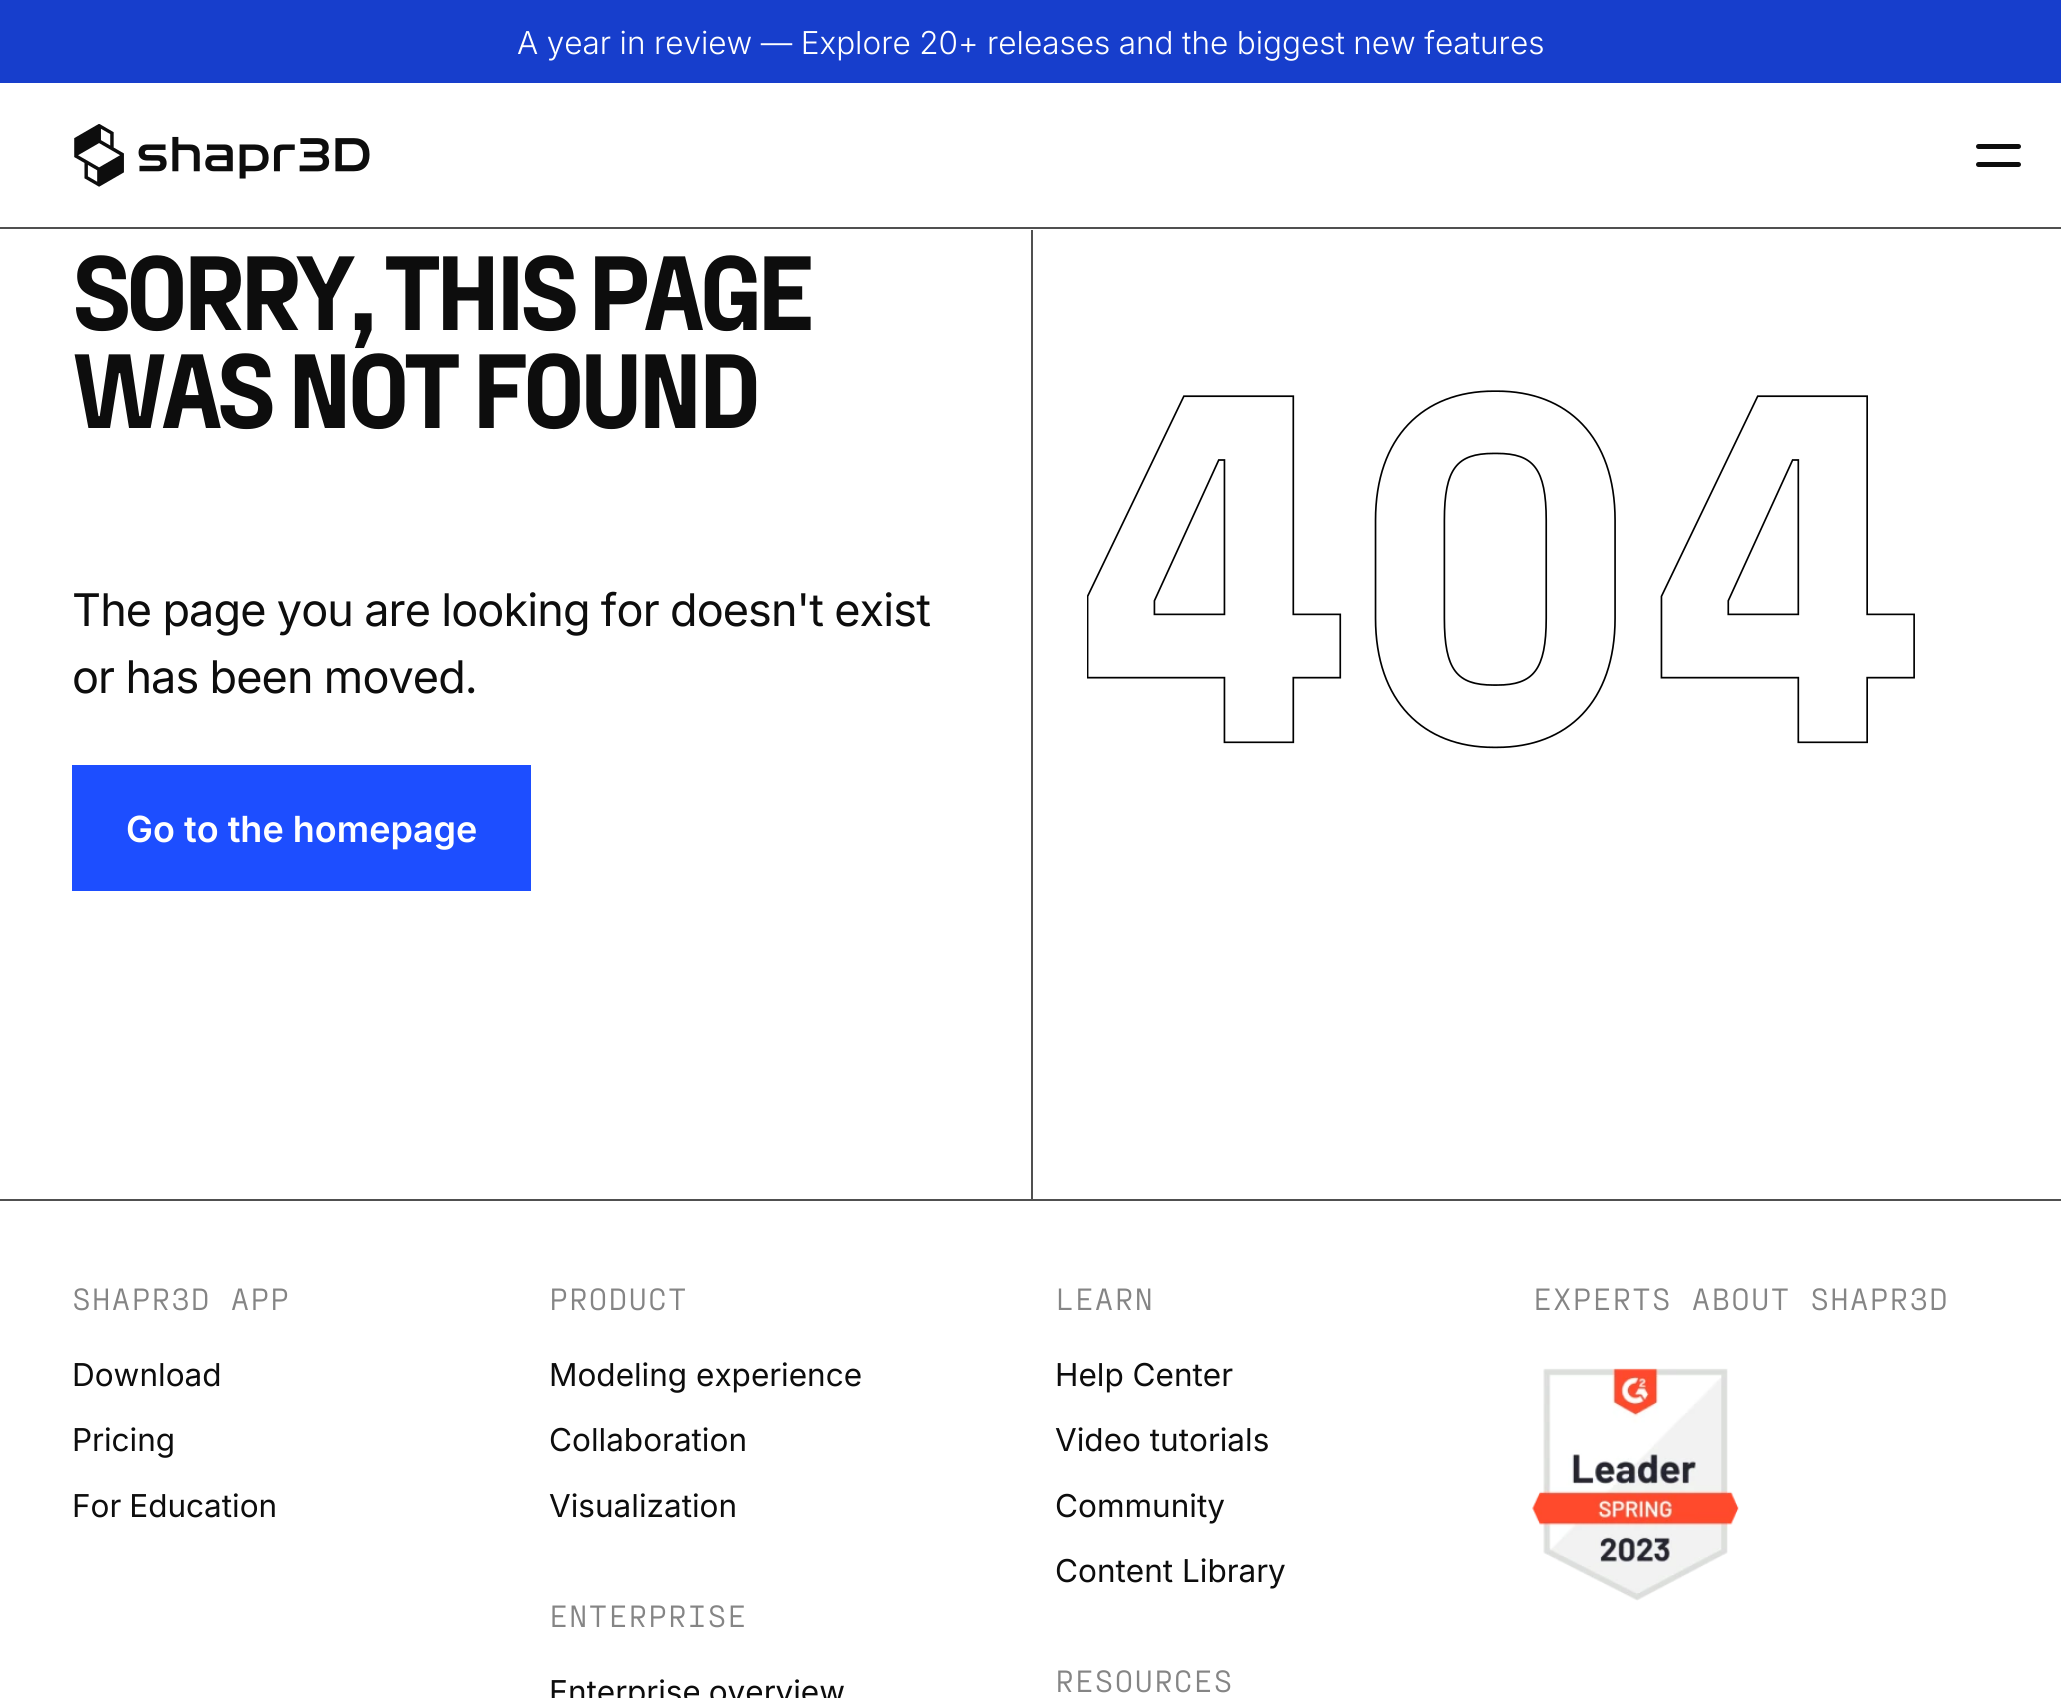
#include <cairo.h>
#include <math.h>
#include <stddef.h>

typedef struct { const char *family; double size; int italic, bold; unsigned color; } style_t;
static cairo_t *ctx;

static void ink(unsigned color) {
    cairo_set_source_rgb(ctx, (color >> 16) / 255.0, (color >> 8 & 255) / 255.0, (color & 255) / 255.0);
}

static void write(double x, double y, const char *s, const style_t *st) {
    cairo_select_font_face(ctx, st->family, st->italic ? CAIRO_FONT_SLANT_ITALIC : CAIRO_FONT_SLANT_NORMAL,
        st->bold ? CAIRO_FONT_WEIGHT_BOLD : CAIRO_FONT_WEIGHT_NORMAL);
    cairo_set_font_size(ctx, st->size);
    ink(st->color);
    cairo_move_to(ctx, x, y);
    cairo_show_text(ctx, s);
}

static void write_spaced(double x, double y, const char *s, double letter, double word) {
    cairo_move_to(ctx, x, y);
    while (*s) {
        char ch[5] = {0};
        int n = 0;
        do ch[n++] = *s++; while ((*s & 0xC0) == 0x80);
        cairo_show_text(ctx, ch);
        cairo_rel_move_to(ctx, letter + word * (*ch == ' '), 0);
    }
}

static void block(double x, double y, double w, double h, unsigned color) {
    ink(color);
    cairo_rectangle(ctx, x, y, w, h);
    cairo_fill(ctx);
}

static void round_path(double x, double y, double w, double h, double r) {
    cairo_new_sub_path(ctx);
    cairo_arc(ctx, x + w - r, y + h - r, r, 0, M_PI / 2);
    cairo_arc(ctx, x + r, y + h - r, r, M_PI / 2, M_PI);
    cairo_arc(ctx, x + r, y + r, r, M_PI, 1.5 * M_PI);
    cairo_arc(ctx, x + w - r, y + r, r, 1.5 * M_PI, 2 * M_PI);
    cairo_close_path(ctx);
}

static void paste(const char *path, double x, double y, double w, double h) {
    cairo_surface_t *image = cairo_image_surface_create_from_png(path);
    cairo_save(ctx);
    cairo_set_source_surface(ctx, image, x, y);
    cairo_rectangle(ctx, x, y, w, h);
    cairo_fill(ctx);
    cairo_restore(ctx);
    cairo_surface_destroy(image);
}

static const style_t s1 = {"Inter SemiBold", 36, 0, 0, 0xffffff};
static const style_t s2 = {"Inter", 31.5, 0, 0, 0x0d0d0d};

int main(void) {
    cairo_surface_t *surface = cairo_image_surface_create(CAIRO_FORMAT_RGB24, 2061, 1698);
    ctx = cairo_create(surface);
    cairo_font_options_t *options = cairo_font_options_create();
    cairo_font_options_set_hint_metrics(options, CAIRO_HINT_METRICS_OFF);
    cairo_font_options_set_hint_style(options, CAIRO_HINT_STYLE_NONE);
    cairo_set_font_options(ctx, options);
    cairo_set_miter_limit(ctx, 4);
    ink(0xffffff);
    cairo_paint(ctx);
    block(0, 0, 2061, 83, 0x173ecc);
    cairo_select_font_face(ctx, "Inter Light", CAIRO_FONT_SLANT_NORMAL, CAIRO_FONT_WEIGHT_NORMAL);
    cairo_set_font_size(ctx, 31.5);
    ink(0xffffff);
    write_spaced(517, 54, "A year in review — Explore 20+ releases and the biggest new features", 0, -0.4);
    block(0, 227, 2061, 2, 0x505050);
    paste("pic1.png", 74, 124, 296, 63);
    ink(0x0d0d0d);
    round_path(1976, 144, 45, 5, 2.5);
    cairo_fill(ctx);
    round_path(1976, 162, 45, 5, 2.5);
    cairo_fill(ctx);
    cairo_select_font_face(ctx, "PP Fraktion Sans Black", CAIRO_FONT_SLANT_NORMAL, CAIRO_FONT_WEIGHT_NORMAL);
    cairo_set_font_size(ctx, 108);
    write_spaced(72, 330, "SORRY, THIS PAGE", -6.75, -6);
    write_spaced(72, 428, "WAS NOT FOUND", -6.75, -3);
    cairo_select_font_face(ctx, "Inter", CAIRO_FONT_SLANT_NORMAL, CAIRO_FONT_WEIGHT_NORMAL);
    cairo_set_font_size(ctx, 45);
    write_spaced(72, 626, "The page you are looking for doesn't exist", -0.9, -0.5);
    write_spaced(72, 693, "or has been moved.", -0.9, -0.5);
    block(72, 765, 459, 126, 0x1d4eff);
    write(126, 842, "Go to the homepage", &s1);
    block(1031, 230, 2, 969, 0x505050);
    paste("pic2.png", 1087, 390, 828, 359);
    block(0, 1199, 2061, 2, 0x505050);
    cairo_select_font_face(ctx, "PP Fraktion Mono", CAIRO_FONT_SLANT_NORMAL, CAIRO_FONT_WEIGHT_NORMAL);
    cairo_set_font_size(ctx, 31.5);
    ink(0x858585);
    write_spaced(72, 1310, "SHAPR3D APP", 0.9, 0);
    write(72, 1386, "Download", &s2);
    write(72, 1451, "Pricing", &s2);
    write_spaced(72, 1517, "For Education", 0, -1);
    cairo_select_font_face(ctx, "PP Fraktion Mono", CAIRO_FONT_SLANT_NORMAL, CAIRO_FONT_WEIGHT_NORMAL);
    ink(0x858585);
    write_spaced(549, 1310, "PRODUCT", 0.9, 0);
    write(549, 1386, "Modeling experience", &s2);
    write(549, 1451, "Collaboration", &s2);
    write(549, 1517, "Visualization", &s2);
    cairo_select_font_face(ctx, "PP Fraktion Mono", CAIRO_FONT_SLANT_NORMAL, CAIRO_FONT_WEIGHT_NORMAL);
    ink(0x858585);
    write_spaced(549, 1627, "ENTERPRISE", 0.9, 0);
    cairo_select_font_face(ctx, "Inter", CAIRO_FONT_SLANT_NORMAL, CAIRO_FONT_WEIGHT_NORMAL);
    ink(0x0d0d0d);
    write_spaced(549, 1703, "Enterprise overview", 0, -1);
    cairo_select_font_face(ctx, "PP Fraktion Mono", CAIRO_FONT_SLANT_NORMAL, CAIRO_FONT_WEIGHT_NORMAL);
    ink(0x858585);
    write_spaced(1055, 1310, "LEARN", 0.9, 0);
    write(1055, 1386, "Help Center", &s2);
    write(1055, 1451, "Video tutorials", &s2);
    write(1055, 1517, "Community", &s2);
    write(1055, 1582, "Content Library", &s2);
    cairo_select_font_face(ctx, "PP Fraktion Mono", CAIRO_FONT_SLANT_NORMAL, CAIRO_FONT_WEIGHT_NORMAL);
    ink(0x858585);
    write_spaced(1055, 1692, "RESOURCES", 0.9, 0);
    write_spaced(1533, 1310, "EXPERTS ABOUT SHAPR3D", 0.9, 0);
    paste("pic3.png", 1532, 1368, 207, 233);
    cairo_surface_write_to_png(surface, "screenshot.png");
    cairo_font_options_destroy(options);
    cairo_destroy(ctx);
    cairo_surface_destroy(surface);
    return 0;
}
